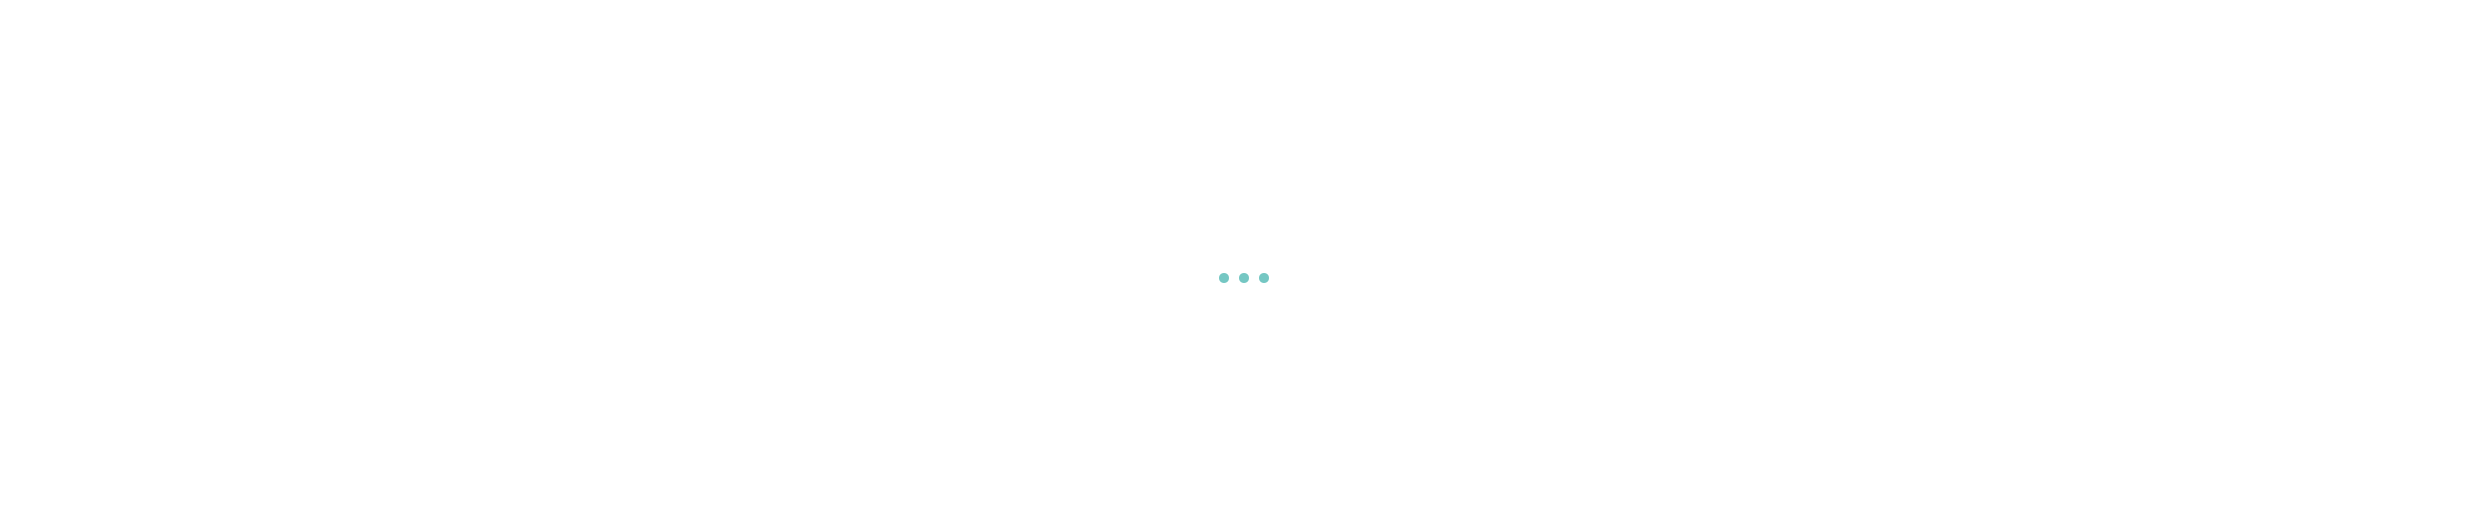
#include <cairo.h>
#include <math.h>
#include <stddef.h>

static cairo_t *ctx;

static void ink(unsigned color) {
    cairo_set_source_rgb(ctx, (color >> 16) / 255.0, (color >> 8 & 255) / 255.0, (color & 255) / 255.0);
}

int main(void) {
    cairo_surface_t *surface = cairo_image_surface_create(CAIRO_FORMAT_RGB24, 2466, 532);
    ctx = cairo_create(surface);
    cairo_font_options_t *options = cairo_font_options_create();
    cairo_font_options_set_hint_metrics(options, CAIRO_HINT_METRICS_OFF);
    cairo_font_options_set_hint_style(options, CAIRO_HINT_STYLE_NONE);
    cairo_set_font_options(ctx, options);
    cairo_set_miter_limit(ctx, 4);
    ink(0xffffff);
    cairo_paint(ctx);
    ink(0x75c7c3);
    cairo_arc(ctx, 1224, 278, 5, 0, 2 * M_PI);
    cairo_fill(ctx);
    cairo_arc(ctx, 1244, 278, 5, 0, 2 * M_PI);
    cairo_fill(ctx);
    cairo_arc(ctx, 1264, 278, 5, 0, 2 * M_PI);
    cairo_fill(ctx);
    cairo_surface_write_to_png(surface, "screenshot.png");
    cairo_font_options_destroy(options);
    cairo_destroy(ctx);
    cairo_surface_destroy(surface);
    return 0;
}
